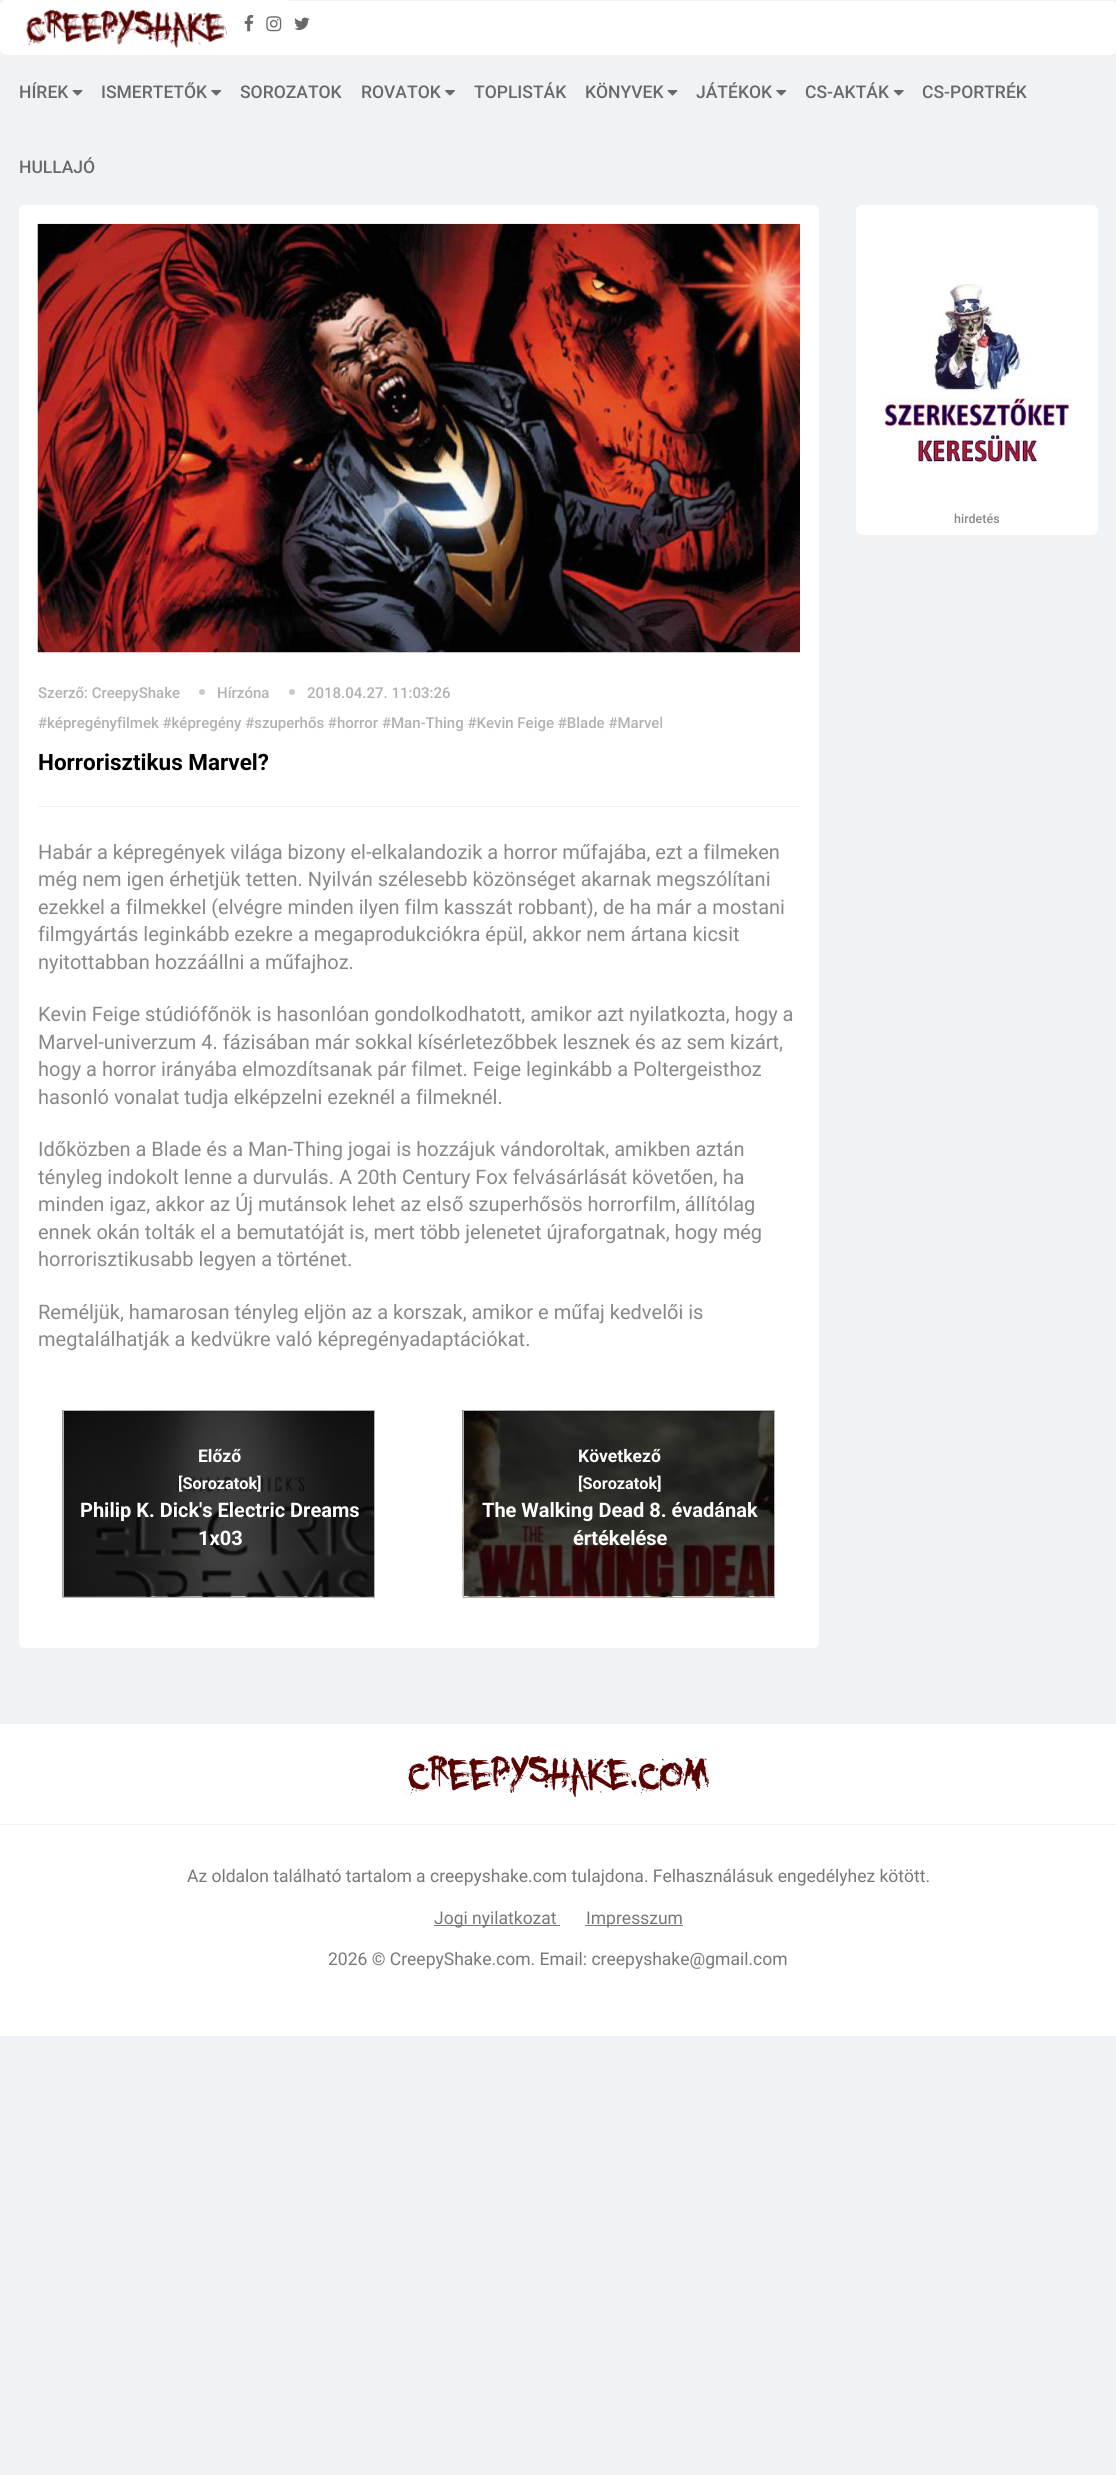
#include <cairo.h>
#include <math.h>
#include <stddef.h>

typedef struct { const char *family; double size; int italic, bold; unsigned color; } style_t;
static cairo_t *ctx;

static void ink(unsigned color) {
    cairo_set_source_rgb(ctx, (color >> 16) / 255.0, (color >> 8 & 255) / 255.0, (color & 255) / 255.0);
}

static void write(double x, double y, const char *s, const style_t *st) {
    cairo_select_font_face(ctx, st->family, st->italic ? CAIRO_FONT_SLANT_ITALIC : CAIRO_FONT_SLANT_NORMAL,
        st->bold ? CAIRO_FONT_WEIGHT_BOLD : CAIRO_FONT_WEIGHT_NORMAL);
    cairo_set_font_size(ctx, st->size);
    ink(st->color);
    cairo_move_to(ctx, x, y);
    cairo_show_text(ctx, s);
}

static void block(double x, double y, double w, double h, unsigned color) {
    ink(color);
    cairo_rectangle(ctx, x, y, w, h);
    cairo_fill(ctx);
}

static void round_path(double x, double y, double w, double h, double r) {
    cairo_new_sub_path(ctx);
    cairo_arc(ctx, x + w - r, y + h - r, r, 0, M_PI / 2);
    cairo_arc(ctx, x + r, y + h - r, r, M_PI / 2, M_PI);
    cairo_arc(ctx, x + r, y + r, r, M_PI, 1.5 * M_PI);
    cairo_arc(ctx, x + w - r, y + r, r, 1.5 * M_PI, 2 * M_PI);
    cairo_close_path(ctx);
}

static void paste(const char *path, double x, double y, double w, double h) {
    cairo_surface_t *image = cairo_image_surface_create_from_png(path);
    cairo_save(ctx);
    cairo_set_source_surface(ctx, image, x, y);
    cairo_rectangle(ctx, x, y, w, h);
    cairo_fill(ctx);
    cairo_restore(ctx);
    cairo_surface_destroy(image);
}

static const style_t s1 = {"Roboto Medium", 17.5, 0, 0, 0x696969};
static const style_t s2 = {"Roboto Medium", 12.5, 0, 0, 0x888888};
static const style_t s3 = {"Roboto Medium", 15, 0, 0, 0xafb1b2};
static const style_t s4 = {"Roboto", 22.5, 0, 1, 0x000000};
static const style_t s5 = {"Roboto", 20, 0, 0, 0x888888};
static const style_t s6 = {"Roboto", 17.5, 0, 1, 0xffffff};
static const style_t s7 = {"Roboto", 16.25, 0, 1, 0xffffff};
static const style_t s8 = {"Roboto", 20, 0, 1, 0xffffff};
static const style_t s9 = {"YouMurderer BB", 58.75, 0, 0, 0x590303};
static const style_t s10 = {"Roboto", 17.5, 0, 0, 0x797878};

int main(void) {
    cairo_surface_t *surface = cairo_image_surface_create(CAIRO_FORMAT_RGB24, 1116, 2475);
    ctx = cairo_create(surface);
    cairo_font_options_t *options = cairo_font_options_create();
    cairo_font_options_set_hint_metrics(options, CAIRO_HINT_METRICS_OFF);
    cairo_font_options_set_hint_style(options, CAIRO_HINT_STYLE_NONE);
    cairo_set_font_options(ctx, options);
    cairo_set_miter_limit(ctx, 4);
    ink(0xf0f3f5);
    cairo_paint(ctx);
    ink(0xffffff);
    round_path(0, 0, 1116, 55, 6);
    cairo_fill(ctx);
    block(289, 0, 827, 1, 0xf0f3f5);
    paste("pic1.png", 23, 9, 204, 39);
    paste("pic2.png", 244, 15, 10, 17);
    paste("pic3.png", 266, 16, 16, 16);
    paste("pic4.png", 294, 17, 16, 13);
    write(19, 98, "HÍREK", &s1);
    paste("pic5.png", 72, 90, 11, 6);
    write(101, 98, "ISMERTETŐK", &s1);
    paste("pic6.png", 211, 90, 11, 6);
    write(240, 98, "SOROZATOK", &s1);
    write(361, 98, "ROVATOK", &s1);
    paste("pic7.png", 445, 90, 10, 6);
    write(474, 98, "TOPLISTÁK", &s1);
    write(585, 98, "KÖNYVEK", &s1);
    paste("pic5.png", 667, 90, 11, 6);
    write(696, 98, "JÁTÉKOK", &s1);
    paste("pic6.png", 776, 90, 11, 6);
    write(805, 98, "CS-AKTÁK", &s1);
    paste("pic8.png", 893, 90, 11, 6);
    write(922, 98, "CS-PORTRÉK", &s1);
    write(19, 173, "HULLAJÓ", &s1);
    ink(0xffffff);
    round_path(856, 205, 242, 330, 6);
    cairo_fill(ctx);
    paste("pic9.png", 880, 283, 191, 181);
    write(954, 523, "hirdetés", &s2);
    ink(0xffffff);
    round_path(19, 205, 800, 1443, 6);
    cairo_fill(ctx);
    paste("pic10.png", 37, 223, 763, 430);
    write(38, 698, "Szerző: CreepyShake", &s3);
    ink(0xc8cacc);
    cairo_new_path(ctx);
    cairo_arc(ctx, 202, 692, 3, 0, 2 * M_PI);
    cairo_fill(ctx);
    write(217, 698, "Hírzóna", &s3);
    ink(0xc8cacc);
    cairo_new_path(ctx);
    cairo_arc(ctx, 292, 692, 3, 0, 2 * M_PI);
    cairo_fill(ctx);
    write(307, 698, "2018.04.27. 11:03:26", &s3);
    write(38, 728, "#képregényfilmek #képregény #szuperhős #horror #Man-Thing #Kevin Feige #Blade #Marvel", &s3);
    write(38, 770, "Horrorisztikus Marvel?", &s4);
    block(38, 806, 762, 1, 0xf0f3f5);
    write(38, 859, "Habár a képregények világa bizony el-elkalandozik a horror műfajába, ezt a filmeken", &s5);
    write(38, 886, "még nem igen érhetjük tetten. Nyilván szélesebb közönséget akarnak megszólítani", &s5);
    write(38, 914, "ezekkel a filmekkel (elvégre minden ilyen film kasszát robbant), de ha már a mostani", &s5);
    write(38, 941, "filmgyártás leginkább ezekre a megaprodukciókra épül, akkor nem ártana kicsit", &s5);
    write(38, 969, "nyitottabban hozzáállni a műfajhoz.", &s5);
    write(38, 1021, "Kevin Feige stúdiófőnök is hasonlóan gondolkodhatott, amikor azt nyilatkozta, hogy a", &s5);
    write(38, 1049, "Marvel-univerzum 4. fázisában már sokkal kísérletezőbbek lesznek és az sem kizárt,", &s5);
    write(38, 1076, "hogy a horror irányába elmozdítsanak pár filmet. Feige leginkább a Poltergeisthoz", &s5);
    write(38, 1104, "hasonló vonalat tudja elképzelni ezeknél a filmeknél.", &s5);
    write(38, 1156, "Időközben a Blade és a Man-Thing jogai is hozzájuk vándoroltak, amikben aztán", &s5);
    write(38, 1184, "tényleg indokolt lenne a durvulás. A 20th Century Fox felvásárlását követően, ha", &s5);
    write(38, 1211, "minden igaz, akkor az Új mutánsok lehet az első szuperhősös horrorfilm, állítólag", &s5);
    write(38, 1239, "ennek okán tolták el a bemutatóját is, mert több jelenetet újraforgatnak, hogy még", &s5);
    write(38, 1266, "horrorisztikusabb legyen a történet.", &s5);
    write(38, 1319, "Reméljük, hamarosan tényleg eljön az a korszak, amikor e műfaj kedvelői is", &s5);
    write(38, 1346, "megtalálhatják a kedvükre való képregényadaptációkat.", &s5);
    paste("pic11.png", 62, 1410, 312, 188);
    cairo_rectangle(ctx, 63.5, 1410.5, 311, 187);
    ink(0xafb1b2);
    cairo_set_line_width(ctx, 1);
    cairo_stroke(ctx);
    write(198, 1462, "Előző", &s6);
    write(178, 1489, "[Sorozatok]", &s7);
    write(80, 1517, "Philip K. Dick's Electric Dreams", &s8);
    write(198, 1545, "1x03", &s8);
    paste("pic12.png", 462, 1410, 312, 188);
    cairo_rectangle(ctx, 463.5, 1410.5, 311, 187);
    ink(0xafb1b2);
    cairo_stroke(ctx);
    write(578, 1462, "Következő", &s6);
    write(578, 1489, "[Sorozatok]", &s7);
    write(482, 1517, "The Walking Dead 8. évadának", &s8);
    write(573, 1545, "értékelése", &s8);
    block(0, 1724, 1116, 312, 0xffffff);
    write(408, 1787, "creepyshake.com", &s9);
    block(0, 1824, 1116, 1, 0xf0f3f5);
    write(187, 1882, "Az oldalon található tartalom a creepyshake.com tulajdona. Felhasználásuk engedélyhez kötött.", &s10);
    block(434, 1925, 126, 1, 0x797878);
    write(434, 1924, "Jogi nyilatkozat", &s10);
    block(585, 1925, 98, 1, 0x797878);
    write(586, 1924, "Impresszum", &s10);
    write(328, 1965, "2026 © CreepyShake.com. Email: creepyshake@gmail.com", &s10);
    cairo_surface_write_to_png(surface, "screenshot.png");
    cairo_font_options_destroy(options);
    cairo_destroy(ctx);
    cairo_surface_destroy(surface);
    return 0;
}
